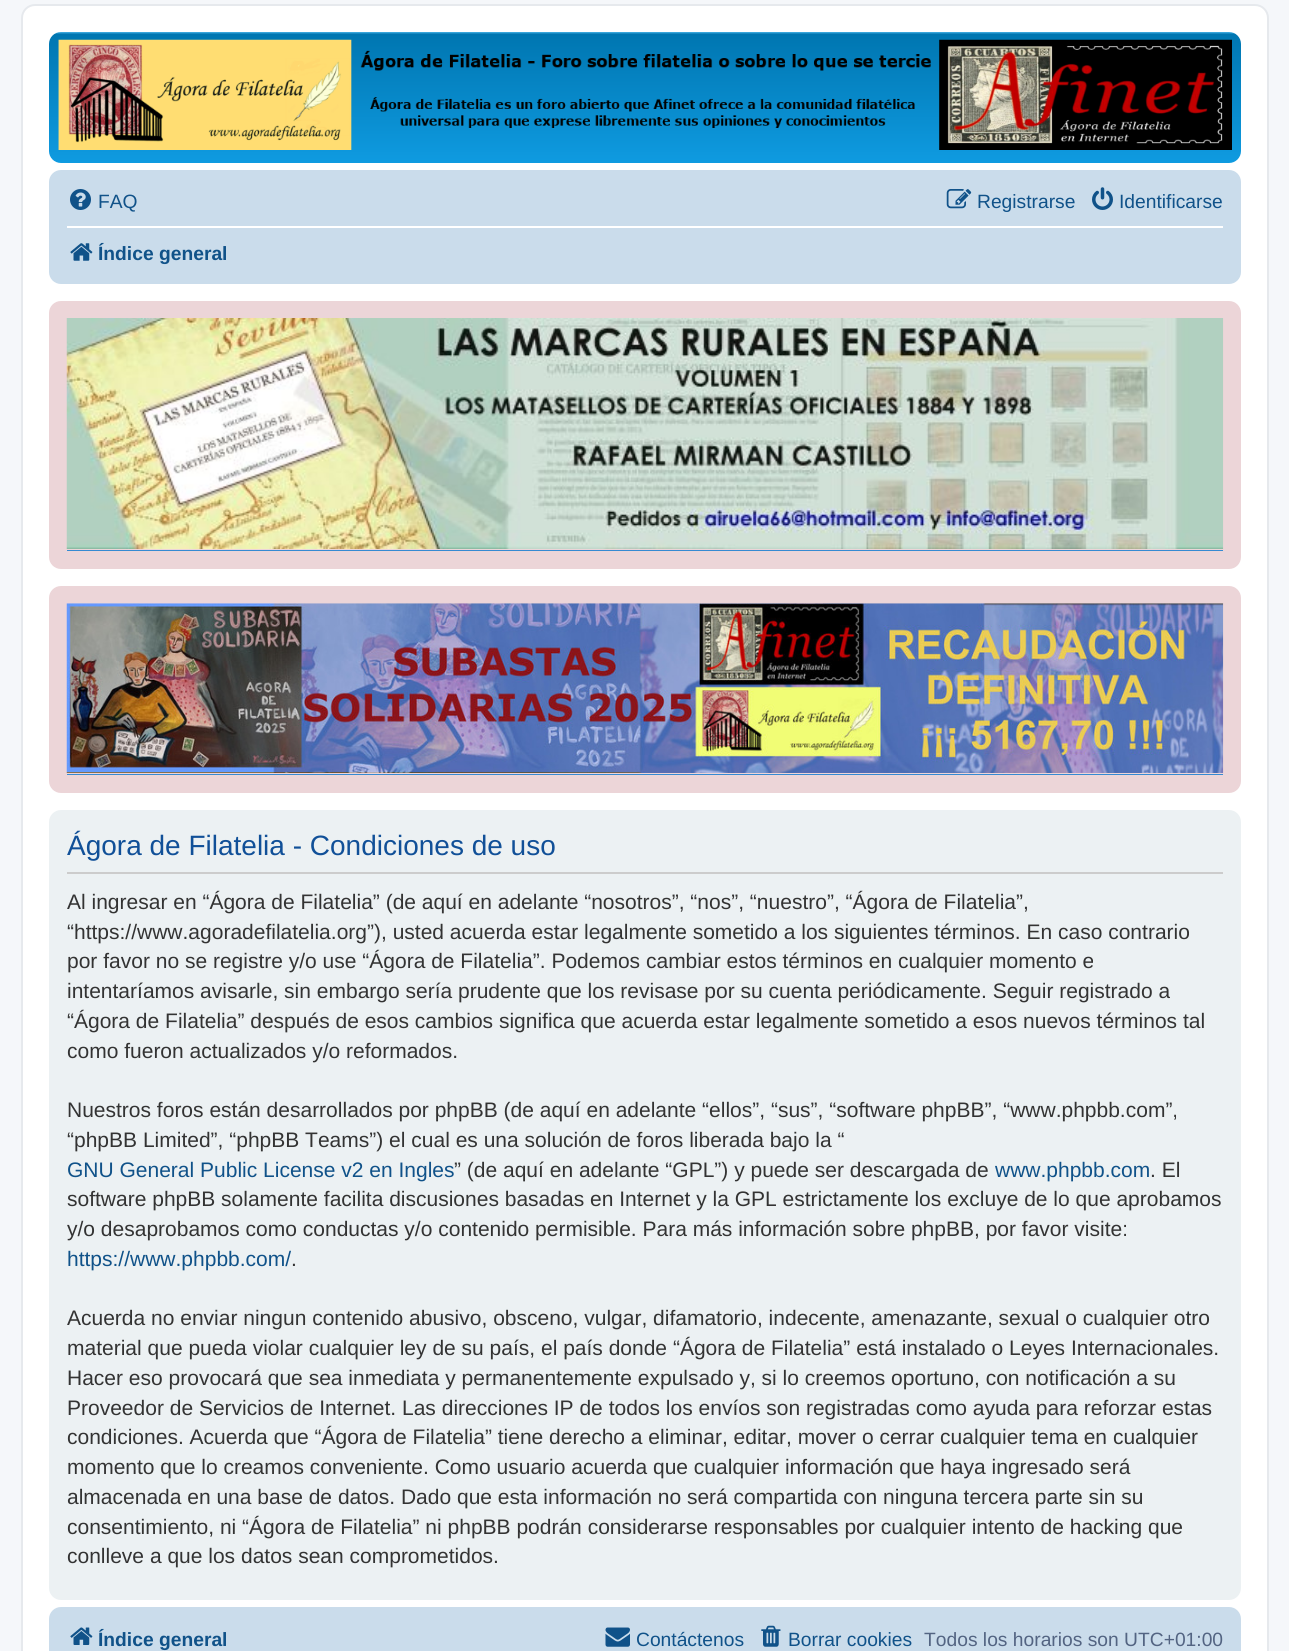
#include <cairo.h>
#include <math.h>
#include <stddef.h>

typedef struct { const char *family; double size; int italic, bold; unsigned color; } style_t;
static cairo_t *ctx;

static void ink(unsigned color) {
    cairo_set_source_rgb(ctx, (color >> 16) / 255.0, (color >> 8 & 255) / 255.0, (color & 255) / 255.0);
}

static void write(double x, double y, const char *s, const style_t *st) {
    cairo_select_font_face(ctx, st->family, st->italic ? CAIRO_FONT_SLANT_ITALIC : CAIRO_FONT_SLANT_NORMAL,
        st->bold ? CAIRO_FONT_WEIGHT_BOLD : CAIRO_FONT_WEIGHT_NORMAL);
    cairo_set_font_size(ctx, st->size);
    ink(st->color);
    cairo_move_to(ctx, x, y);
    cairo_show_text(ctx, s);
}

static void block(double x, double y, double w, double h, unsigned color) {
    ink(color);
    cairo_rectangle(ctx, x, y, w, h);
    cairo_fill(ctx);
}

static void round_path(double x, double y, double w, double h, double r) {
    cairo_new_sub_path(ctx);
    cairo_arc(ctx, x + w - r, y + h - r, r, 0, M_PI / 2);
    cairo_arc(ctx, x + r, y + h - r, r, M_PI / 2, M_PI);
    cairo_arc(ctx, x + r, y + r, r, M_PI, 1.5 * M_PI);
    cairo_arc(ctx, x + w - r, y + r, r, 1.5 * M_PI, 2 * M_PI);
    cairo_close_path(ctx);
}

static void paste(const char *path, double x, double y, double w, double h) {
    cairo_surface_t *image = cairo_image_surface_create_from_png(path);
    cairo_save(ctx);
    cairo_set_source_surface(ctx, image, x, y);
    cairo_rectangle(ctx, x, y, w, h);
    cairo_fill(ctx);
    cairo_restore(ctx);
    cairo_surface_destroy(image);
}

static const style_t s1 = {"Liberation Sans", 19.25, 0, 0, 0x105289};
static const style_t s2 = {"Liberation Sans", 19.25, 0, 1, 0x105289};
static const style_t s3 = {"Liberation Sans", 28, 0, 0, 0x115098};
static const style_t s4 = {"Liberation Sans", 21, 0, 0, 0x333333};
static const style_t s5 = {"Liberation Sans", 21, 0, 0, 0x105289};
static const style_t s6 = {"Liberation Sans", 19.25, 0, 0, 0x536482};

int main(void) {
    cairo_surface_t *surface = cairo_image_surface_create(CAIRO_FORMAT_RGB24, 1289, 1651);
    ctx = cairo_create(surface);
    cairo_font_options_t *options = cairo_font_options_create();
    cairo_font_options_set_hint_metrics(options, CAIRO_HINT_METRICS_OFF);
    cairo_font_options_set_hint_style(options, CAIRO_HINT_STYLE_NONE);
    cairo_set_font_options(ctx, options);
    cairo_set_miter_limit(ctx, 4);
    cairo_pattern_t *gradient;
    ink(0xf5f7fa);
    cairo_paint(ctx);
    ink(0xffffff);
    round_path(22, 5, 1246, 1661, 13);
    cairo_fill_preserve(ctx);
    ink(0xe6e9ed);
    cairo_stroke(ctx);
    gradient = cairo_pattern_create_linear(645, 31, 645, 192);
    cairo_pattern_add_color_stop_rgba(gradient, 0, 0.416, 0.808, 1, 1);
    cairo_pattern_add_color_stop_rgba(gradient, 0.02, 0, 0.463, 0.694, 1);
    cairo_pattern_add_color_stop_rgba(gradient, 1, 0.071, 0.639, 0.922, 1);
    cairo_set_source(ctx, gradient);
    cairo_pattern_destroy(gradient);
    round_path(49, 32, 1192, 131, 12);
    cairo_fill(ctx);
    paste("pic1.png", 58, 39, 1174, 111);
    ink(0xcadceb);
    round_path(49, 170, 1192, 114, 12);
    cairo_fill(ctx);
    paste("pic2.png", 70, 189, 21, 21);
    write(98, 208, "FAQ", &s1);
    paste("pic3.png", 946, 189, 26, 20);
    write(977, 208, "Registrarse", &s1);
    paste("pic4.png", 1092, 187, 21, 23);
    write(1119, 208, "Identificarse", &s1);
    block(67, 226, 1156, 2, 0xffffff);
    paste("pic5.png", 70, 243, 23, 18);
    write(98, 260, "Índice general", &s2);
    ink(0xecd5d8);
    round_path(49, 301, 1192, 268, 12);
    cairo_fill(ctx);
    block(67, 550, 1156, 1, 0x368ad2);
    paste("pic6.png", 66, 318, 1158, 231);
    ink(0xecd5d8);
    round_path(49, 586, 1192, 207, 12);
    cairo_fill(ctx);
    block(67, 774, 1156, 1, 0x368ad2);
    paste("pic7.png", 66, 603, 1158, 170);
    ink(0xecf1f3);
    round_path(49, 810, 1192, 790, 12);
    cairo_fill(ctx);
    block(67, 872, 1156, 2, 0xcccccc);
    write(67, 855, "Ágora de Filatelia - Condiciones de uso", &s3);
    write(67, 909, "Al ingresar en “Ágora de Filatelia” (de aquí en adelante “nosotros”, “nos”, “nuestro”, “Ágora de Filatelia”,", &s4);
    write(67, 939, "“https://www.agoradefilatelia.org”), usted acuerda estar legalmente sometido a los siguientes términos. En caso contrario", &s4);
    write(67, 968, "por favor no se registre y/o use “Ágora de Filatelia”. Podemos cambiar estos términos en cualquier momento e", &s4);
    write(67, 998, "intentaríamos avisarle, sin embargo sería prudente que los revisase por su cuenta periódicamente. Seguir registrado a", &s4);
    write(67, 1028, "“Ágora de Filatelia” después de esos cambios significa que acuerda estar legalmente sometido a esos nuevos términos tal", &s4);
    write(67, 1058, "como fueron actualizados y/o reformados.", &s4);
    write(67, 1117, "Nuestros foros están desarrollados por phpBB (de aquí en adelante “ellos”, “sus”, “software phpBB”, “www.phpbb.com”,", &s4);
    write(67, 1147, "“phpBB Limited”, “phpBB Teams”) el cual es una solución de foros liberada bajo la “", &s4);
    write(67, 1177, "GNU General Public License v2 en Ingles", &s5);
    write(454, 1177, "” (de aquí en adelante “GPL”) y puede ser descargada de", &s4);
    write(995, 1177, "www.phpbb.com", &s5);
    write(1150, 1177, ". El", &s4);
    write(67, 1206, "software phpBB solamente facilita discusiones basadas en Internet y la GPL estrictamente los excluye de lo que aprobamos", &s4);
    write(67, 1236, "y/o desaprobamos como conductas y/o contenido permisible. Para más información sobre phpBB, por favor visite:", &s4);
    write(67, 1266, "https://www.phpbb.com/", &s5);
    write(291, 1266, ".", &s4);
    write(67, 1325, "Acuerda no enviar ningun contenido abusivo, obsceno, vulgar, difamatorio, indecente, amenazante, sexual o cualquier otro", &s4);
    write(67, 1355, "material que pueda violar cualquier ley de su país, el país donde “Ágora de Filatelia” está instalado o Leyes Internacionales.", &s4);
    write(67, 1385, "Hacer eso provocará que sea inmediata y permanentemente expulsado y, si lo creemos oportuno, con notificación a su", &s4);
    write(67, 1415, "Proveedor de Servicios de Internet. Las direcciones IP de todos los envíos son registradas como ayuda para reforzar estas", &s4);
    write(67, 1444, "condiciones. Acuerda que “Ágora de Filatelia” tiene derecho a eliminar, editar, mover o cerrar cualquier tema en cualquier", &s4);
    write(67, 1474, "momento que lo creamos conveniente. Como usuario acuerda que cualquier información que haya ingresado será", &s4);
    write(67, 1504, "almacenada en una base de datos. Dado que esta información no será compartida con ninguna tercera parte sin su", &s4);
    write(67, 1534, "consentimiento, ni “Ágora de Filatelia” ni phpBB podrán considerarse responsables por cualquier intento de hacking que", &s4);
    write(67, 1563, "conlleve a que los datos sean comprometidos.", &s4);
    ink(0xcadceb);
    round_path(49, 1607, 1192, 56, 12);
    cairo_fill(ctx);
    paste("pic8.png", 70, 1627, 23, 18);
    write(98, 1646, "Índice general", &s2);
    paste("pic9.png", 605, 1627, 25, 20);
    write(636, 1646, "Contáctenos", &s1);
    paste("pic10.png", 761, 1625, 20, 22);
    write(788, 1646, "Borrar cookies", &s1);
    write(924, 1646, "Todos los horarios son UTC+01:00", &s6);
    cairo_surface_write_to_png(surface, "screenshot.png");
    cairo_font_options_destroy(options);
    cairo_destroy(ctx);
    cairo_surface_destroy(surface);
    return 0;
}
